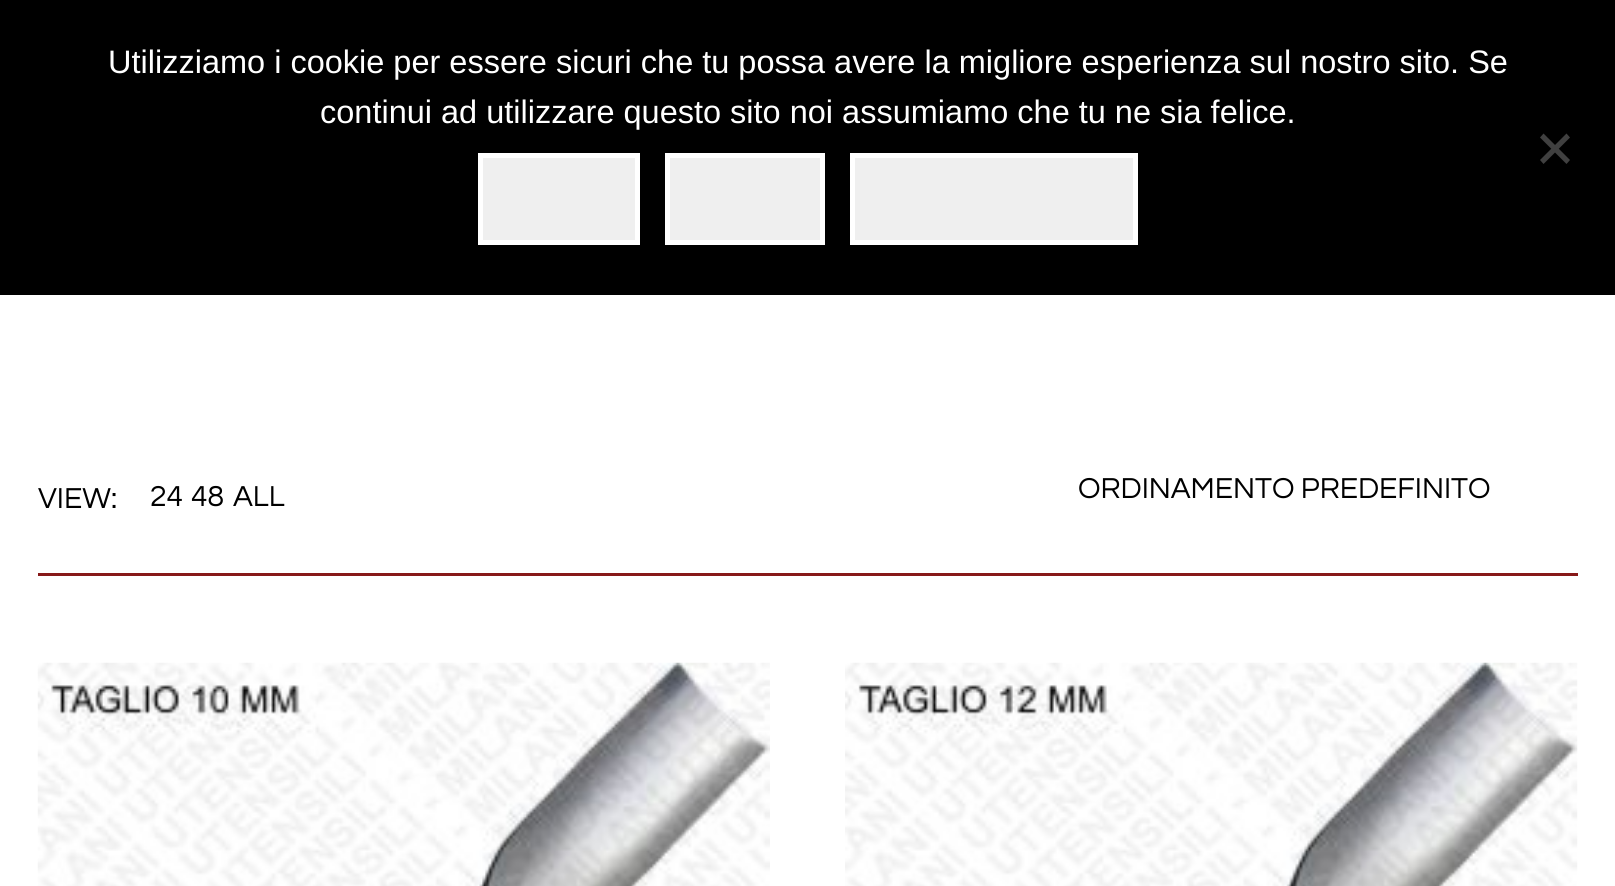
#include <cairo.h>
#include <math.h>
#include <stddef.h>

typedef struct { const char *family; double size; int italic, bold; unsigned color; } style_t;
static cairo_t *ctx;

static void ink(unsigned color) {
    cairo_set_source_rgb(ctx, (color >> 16) / 255.0, (color >> 8 & 255) / 255.0, (color & 255) / 255.0);
}

static void write(double x, double y, const char *s, const style_t *st) {
    cairo_select_font_face(ctx, st->family, st->italic ? CAIRO_FONT_SLANT_ITALIC : CAIRO_FONT_SLANT_NORMAL,
        st->bold ? CAIRO_FONT_WEIGHT_BOLD : CAIRO_FONT_WEIGHT_NORMAL);
    cairo_set_font_size(ctx, st->size);
    ink(st->color);
    cairo_move_to(ctx, x, y);
    cairo_show_text(ctx, s);
}

static void block(double x, double y, double w, double h, unsigned color) {
    ink(color);
    cairo_rectangle(ctx, x, y, w, h);
    cairo_fill(ctx);
}

static void paste(const char *path, double x, double y, double w, double h) {
    cairo_surface_t *image = cairo_image_surface_create_from_png(path);
    cairo_save(ctx);
    cairo_set_source_surface(ctx, image, x, y);
    cairo_rectangle(ctx, x, y, w, h);
    cairo_fill(ctx);
    cairo_restore(ctx);
    cairo_surface_destroy(image);
}

static const style_t s1 = {"Liberation Sans", 32.5, 0, 0, 0xffffff};
static const style_t s2 = {"Questrial", 30, 0, 0, 0x000000};

int main(void) {
    cairo_surface_t *surface = cairo_image_surface_create(CAIRO_FORMAT_RGB24, 1615, 886);
    ctx = cairo_create(surface);
    cairo_font_options_t *options = cairo_font_options_create();
    cairo_font_options_set_hint_metrics(options, CAIRO_HINT_METRICS_OFF);
    cairo_font_options_set_hint_style(options, CAIRO_HINT_STYLE_NONE);
    cairo_set_font_options(ctx, options);
    cairo_set_miter_limit(ctx, 4);
    ink(0xffffff);
    cairo_paint(ctx);
    block(0, 0, 1615, 295, 0x000000);
    write(108, 73, "Utilizziamo i cookie per essere sicuri che tu possa avere la migliore esperienza sul nostro sito. Se", &s1);
    write(320, 123, "continui ad utilizzare questo sito noi assumiamo che tu ne sia felice.", &s1);
    ink(0x404040);
    cairo_new_path(ctx);
    cairo_move_to(ctx, 1566.5, 133.5);
    cairo_line_to(ctx, 1570, 137.5);
    cairo_line_to(ctx, 1543.5, 164);
    cairo_line_to(ctx, 1540, 160);
    cairo_close_path(ctx);
    cairo_fill(ctx);
    cairo_new_path(ctx);
    cairo_move_to(ctx, 1540, 137.5);
    cairo_line_to(ctx, 1543.5, 133.5);
    cairo_line_to(ctx, 1570, 160);
    cairo_line_to(ctx, 1566.5, 164);
    cairo_close_path(ctx);
    cairo_fill(ctx);
    ink(0xefefef);
    cairo_rectangle(ctx, 480.5, 155.5, 157, 87);
    cairo_fill_preserve(ctx);
    ink(0xffffff);
    cairo_set_line_width(ctx, 5);
    cairo_stroke(ctx);
    ink(0xefefef);
    cairo_rectangle(ctx, 667.5, 155.5, 155, 87);
    cairo_fill_preserve(ctx);
    ink(0xffffff);
    cairo_stroke(ctx);
    ink(0xefefef);
    cairo_rectangle(ctx, 852.5, 155.5, 283, 87);
    cairo_fill_preserve(ctx);
    ink(0xffffff);
    cairo_stroke(ctx);
    block(38, 573, 1540, 3, 0x871818);
    write(38, 508, "VIEW:", &s2);
    write(150, 506, "24", &s2);
    write(191, 506, "48", &s2);
    write(233, 506, "ALL", &s2);
    write(1078, 498, "ORDINAMENTO PREDEFINITO", &s2);
    paste("pic1.png", 37, 662, 733, 224);
    paste("pic2.png", 845, 662, 733, 224);
    cairo_surface_write_to_png(surface, "screenshot.png");
    cairo_font_options_destroy(options);
    cairo_destroy(ctx);
    cairo_surface_destroy(surface);
    return 0;
}
